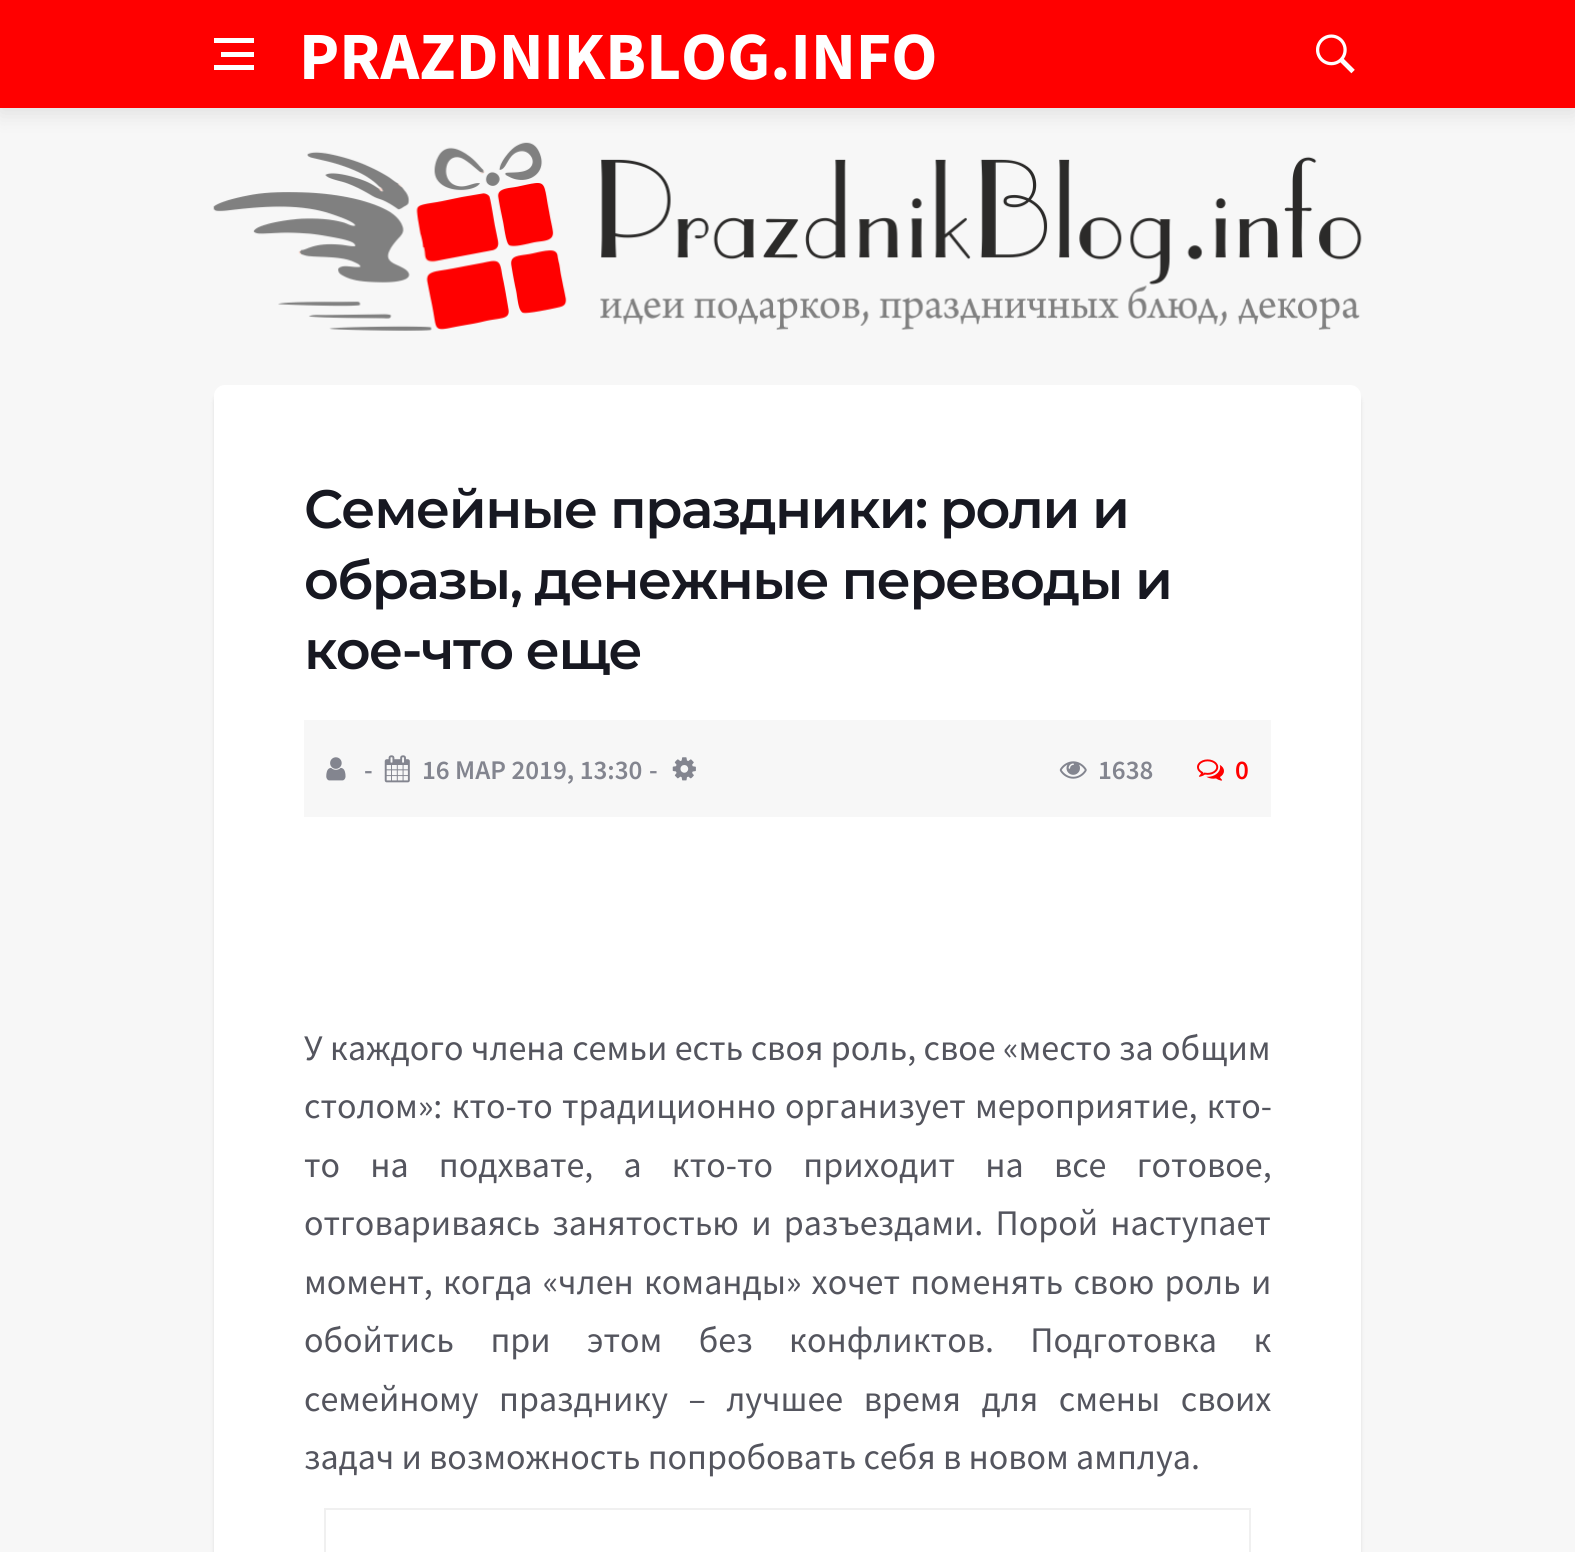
#include <cairo.h>
#include <math.h>
#include <stddef.h>

typedef struct { const char *family; double size; int italic, bold; unsigned color; } style_t;
static cairo_t *ctx;

static void ink(unsigned color) {
    cairo_set_source_rgb(ctx, (color >> 16) / 255.0, (color >> 8 & 255) / 255.0, (color & 255) / 255.0);
}

static void write(double x, double y, const char *s, const style_t *st) {
    cairo_select_font_face(ctx, st->family, st->italic ? CAIRO_FONT_SLANT_ITALIC : CAIRO_FONT_SLANT_NORMAL,
        st->bold ? CAIRO_FONT_WEIGHT_BOLD : CAIRO_FONT_WEIGHT_NORMAL);
    cairo_set_font_size(ctx, st->size);
    ink(st->color);
    cairo_move_to(ctx, x, y);
    cairo_show_text(ctx, s);
}

static void write_spaced(double x, double y, const char *s, double letter, double word) {
    cairo_move_to(ctx, x, y);
    while (*s) {
        char ch[5] = {0};
        int n = 0;
        do ch[n++] = *s++; while ((*s & 0xC0) == 0x80);
        cairo_show_text(ctx, ch);
        cairo_rel_move_to(ctx, letter + word * (*ch == ' '), 0);
    }
}

static void block(double x, double y, double w, double h, unsigned color) {
    ink(color);
    cairo_rectangle(ctx, x, y, w, h);
    cairo_fill(ctx);
}

static void round_path(double x, double y, double w, double h, double r) {
    cairo_new_sub_path(ctx);
    cairo_arc(ctx, x + w - r, y + h - r, r, 0, M_PI / 2);
    cairo_arc(ctx, x + r, y + h - r, r, M_PI / 2, M_PI);
    cairo_arc(ctx, x + r, y + r, r, M_PI, 1.5 * M_PI);
    cairo_arc(ctx, x + w - r, y + r, r, 1.5 * M_PI, 2 * M_PI);
    cairo_close_path(ctx);
}

static void blur_box(double x, double y, double w, double h, double r, double blur, double alpha) {
    cairo_push_group_with_content(ctx, CAIRO_CONTENT_ALPHA);
    cairo_set_operator(ctx, CAIRO_OPERATOR_SOURCE);
    for (int i = 15; i >= -15 && fmin(w, h) + blur * i / 3 > 0; i -= 2) {
        double e = blur * i / 6;
        cairo_set_source_rgba(ctx, 0, 0, 0, alpha * erfc((i - 1) / 8.5) / 2);
        round_path(x - e, y - e, w + 2 * e, h + 2 * e, fmax(0, fmin(r + e + blur * .6, fmin(w, h) / 2 + e)));
        cairo_fill(ctx);
    }
    cairo_pattern_t *soft = cairo_pop_group(ctx);
    cairo_mask(ctx, soft);
    cairo_pattern_destroy(soft);
}

static void paste(const char *path, double x, double y, double w, double h) {
    cairo_surface_t *image = cairo_image_surface_create_from_png(path);
    cairo_save(ctx);
    cairo_set_source_surface(ctx, image, x, y);
    cairo_rectangle(ctx, x, y, w, h);
    cairo_fill(ctx);
    cairo_restore(ctx);
    cairo_surface_destroy(image);
}

static const style_t s1 = {"Source Sans Pro", 67.5, 0, 1, 0xffffff};
static const style_t s2 = {"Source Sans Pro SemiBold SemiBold", 27, 0, 0, 0x83858f};
static const style_t s3 = {"Source Sans Pro SemiBold SemiBold", 27, 0, 0, 0xff0000};
static const style_t s4 = {"Source Sans Pro", 36, 0, 0, 0x54555e};

int main(void) {
    cairo_surface_t *surface = cairo_image_surface_create(CAIRO_FORMAT_RGB24, 1575, 1552);
    ctx = cairo_create(surface);
    cairo_font_options_t *options = cairo_font_options_create();
    cairo_font_options_set_hint_metrics(options, CAIRO_HINT_METRICS_OFF);
    cairo_font_options_set_hint_style(options, CAIRO_HINT_STYLE_NONE);
    cairo_set_font_options(ctx, options);
    cairo_set_miter_limit(ctx, 4);
    ink(0xf7f7f7);
    cairo_paint(ctx);
    paste("pic2.png", 213, 142, 1149, 189);
    ink(0x000000);
    blur_box(0, 5, 1575, 108, 0, 11, 0.1);
    block(0, 0, 1575, 108, 0xff0000);
    block(221, 52, 33, 5, 0xffffff);
    block(214, 38, 40, 5, 0xffffff);
    block(214, 65, 40, 5, 0xffffff);
    write(299, 79, "PRAZDNIKBLOG.INFO", &s1);
    paste("pic1.png", 1316, 34, 39, 40);
    ink(0x000000);
    blur_box(214, 392, 1147, 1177, 11, 2, 0.1);
    ink(0xffffff);
    round_path(214, 385, 1147, 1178, 11);
    cairo_fill(ctx);
    cairo_select_font_face(ctx, "Montserrat SemiBold", CAIRO_FONT_SLANT_NORMAL, CAIRO_FONT_WEIGHT_NORMAL);
    cairo_set_font_size(ctx, 54);
    ink(0x171821);
    write_spaced(304, 528, "Семейные праздники: роли и", -1.6, 0);
    write_spaced(304, 599, "образы, денежные переводы и", -1.6, 0);
    write_spaced(304, 669, "кое-что еще", -1.6, 0);
    block(304, 720, 967, 97, 0xf7f7f7);
    paste("pic3.png", 326, 757, 20, 24);
    write(364, 779, "-", &s2);
    paste("pic4.png", 384, 755, 26, 28);
    write(422, 779, "16 МАР 2019, 13:30", &s2);
    write(649, 779, "-", &s2);
    paste("pic5.png", 672, 757, 24, 24);
    paste("pic6.png", 1059, 761, 28, 18);
    write(1098, 779, "1638", &s2);
    paste("pic7.png", 1197, 759, 27, 22);
    write(1235, 779, "0", &s3);
    cairo_select_font_face(ctx, "Source Sans Pro", CAIRO_FONT_SLANT_NORMAL, CAIRO_FONT_WEIGHT_NORMAL);
    cairo_set_font_size(ctx, 36);
    ink(0x54555e);
    write_spaced(304, 1060, "У каждого члена семьи есть своя роль, свое «место за общим", 0, 0.25);
    write_spaced(304, 1118, "столом»: кто-то традиционно организует мероприятие, кто-", 0, 2);
    write_spaced(304, 1177, "то на подхвате, а кто-то приходит на все готовое,", 0, 23);
    write_spaced(304, 1235, "отговариваясь занятостью и разъездами. Порой наступает", 0, 5);
    write_spaced(304, 1294, "момент, когда «член команды» хочет поменять свою роль и", 0, 3);
    write_spaced(304, 1352, "обойтись при этом без конфликтов. Подготовка к", 0, 29.25);
    write_spaced(304, 1411, "семейному празднику – лучшее время для смены своих", 0, 13.25);
    write(304, 1469, "задач и возможность попробовать себя в новом амплуа.", &s4);
    cairo_rectangle(ctx, 325, 1509, 925, 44);
    ink(0xf0f0f0);
    cairo_stroke(ctx);
    cairo_surface_write_to_png(surface, "screenshot.png");
    cairo_font_options_destroy(options);
    cairo_destroy(ctx);
    cairo_surface_destroy(surface);
    return 0;
}
